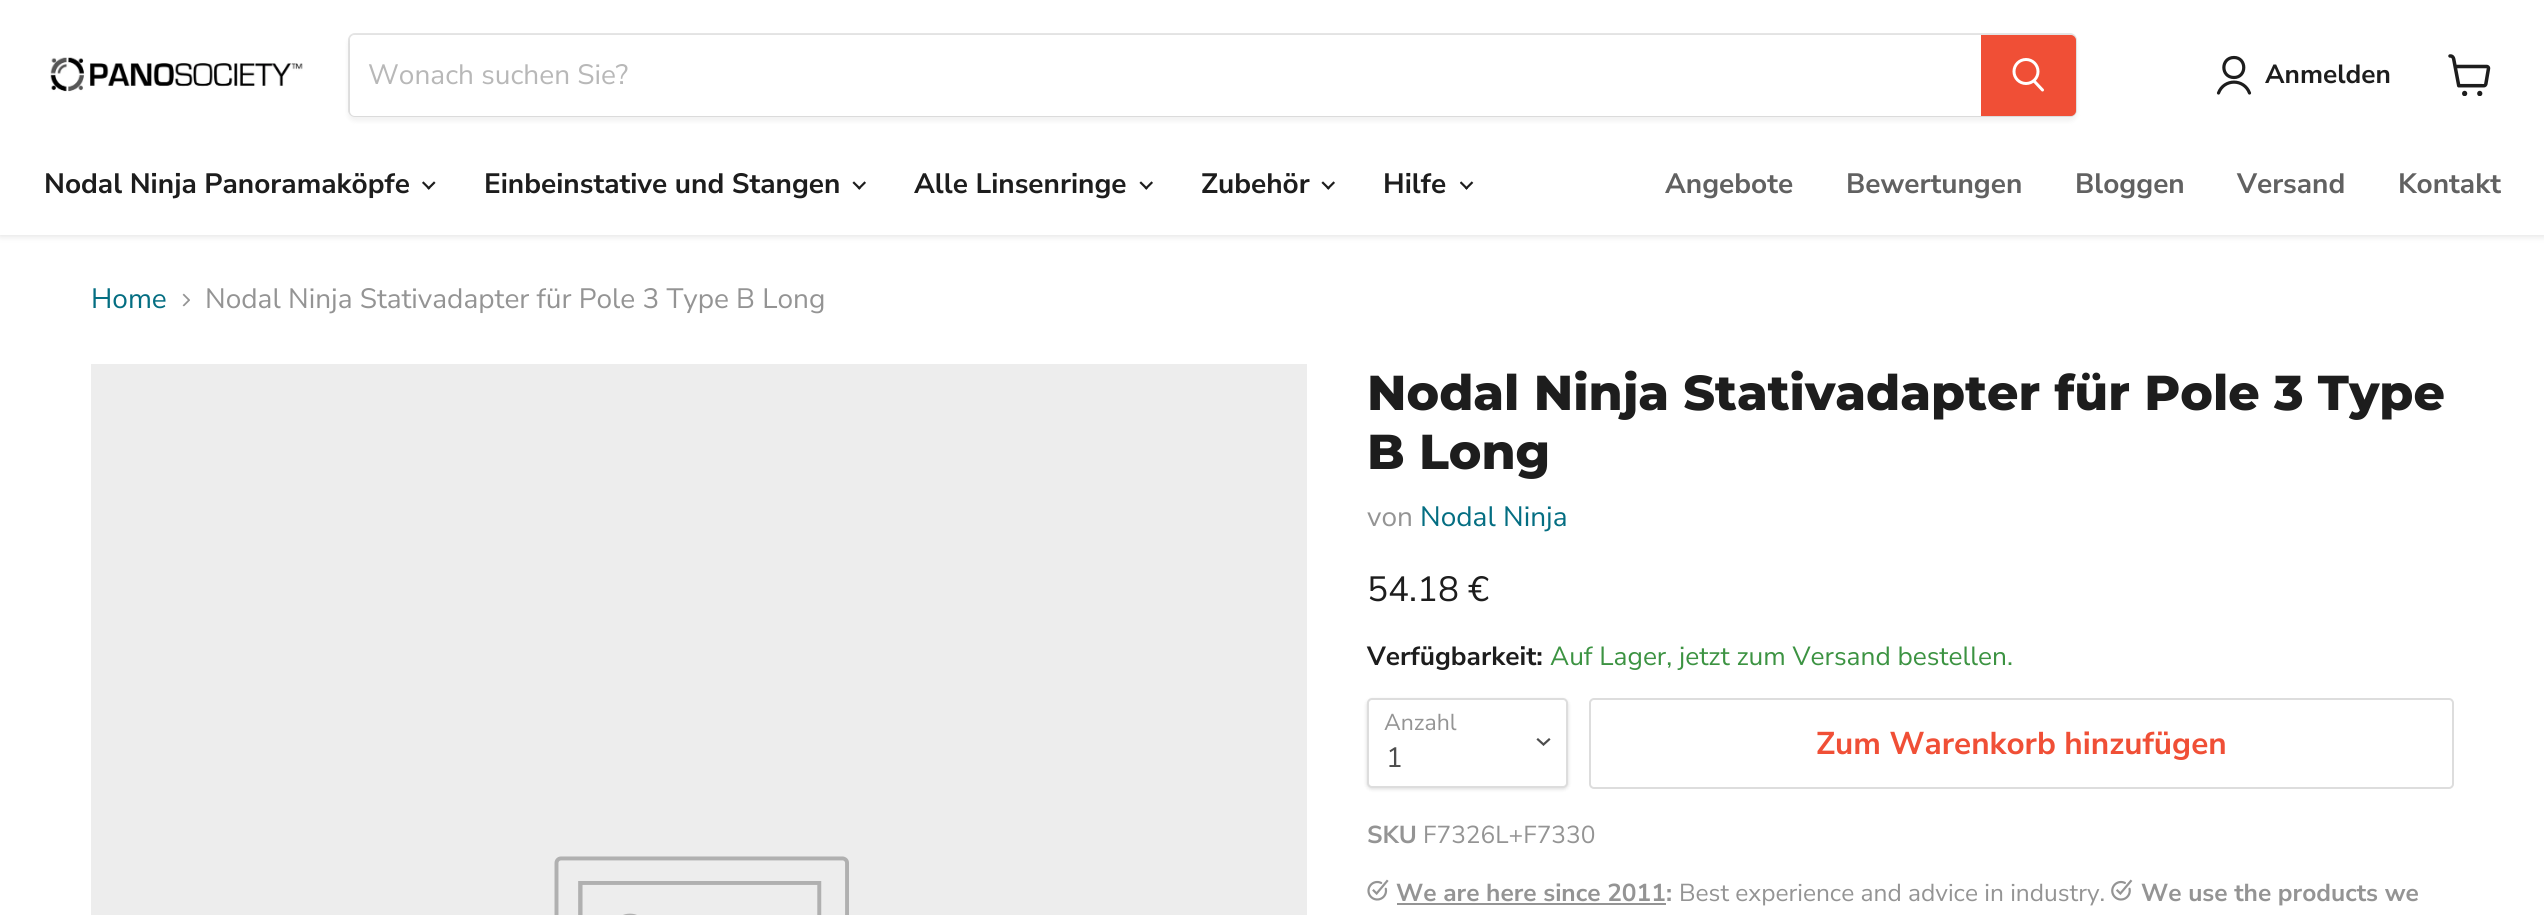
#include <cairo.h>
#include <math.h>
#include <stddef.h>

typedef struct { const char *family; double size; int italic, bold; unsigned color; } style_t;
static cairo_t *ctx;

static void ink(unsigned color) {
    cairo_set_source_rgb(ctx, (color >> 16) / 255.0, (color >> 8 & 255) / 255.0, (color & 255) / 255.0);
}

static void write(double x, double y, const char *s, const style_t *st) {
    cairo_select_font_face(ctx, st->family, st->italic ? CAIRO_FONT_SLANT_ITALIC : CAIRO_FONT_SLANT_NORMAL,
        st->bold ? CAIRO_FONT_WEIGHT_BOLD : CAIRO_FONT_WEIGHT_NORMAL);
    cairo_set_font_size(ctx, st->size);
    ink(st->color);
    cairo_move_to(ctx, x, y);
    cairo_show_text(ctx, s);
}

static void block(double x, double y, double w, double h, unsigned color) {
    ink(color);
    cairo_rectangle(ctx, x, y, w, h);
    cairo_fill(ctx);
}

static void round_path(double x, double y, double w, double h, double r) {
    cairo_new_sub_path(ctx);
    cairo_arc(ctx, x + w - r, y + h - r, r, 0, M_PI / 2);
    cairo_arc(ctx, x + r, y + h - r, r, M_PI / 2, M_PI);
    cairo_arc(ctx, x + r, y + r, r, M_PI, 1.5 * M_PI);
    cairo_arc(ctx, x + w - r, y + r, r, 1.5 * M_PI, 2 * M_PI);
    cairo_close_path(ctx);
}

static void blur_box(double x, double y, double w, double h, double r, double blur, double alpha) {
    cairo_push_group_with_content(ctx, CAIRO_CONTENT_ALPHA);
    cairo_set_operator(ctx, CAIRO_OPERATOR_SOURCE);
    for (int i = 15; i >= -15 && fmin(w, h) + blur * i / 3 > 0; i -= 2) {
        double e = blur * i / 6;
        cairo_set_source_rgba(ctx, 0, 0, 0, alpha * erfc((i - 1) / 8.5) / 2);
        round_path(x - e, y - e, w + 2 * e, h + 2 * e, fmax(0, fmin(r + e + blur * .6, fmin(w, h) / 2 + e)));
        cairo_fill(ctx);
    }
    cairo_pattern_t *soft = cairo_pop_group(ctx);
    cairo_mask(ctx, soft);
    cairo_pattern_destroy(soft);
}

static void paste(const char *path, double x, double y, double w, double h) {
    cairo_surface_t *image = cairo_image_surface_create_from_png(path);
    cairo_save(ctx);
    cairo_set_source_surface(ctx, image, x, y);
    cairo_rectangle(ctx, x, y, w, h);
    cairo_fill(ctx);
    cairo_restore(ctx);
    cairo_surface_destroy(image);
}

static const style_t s1 = {"Nunito Sans", 28, 0, 0, 0xb8b8b8};
static const style_t s2 = {"Nunito Sans", 26.25, 0, 1, 0x1d1d1d};
static const style_t s3 = {"Nunito Sans", 28, 0, 1, 0x1d1d1d};
static const style_t s4 = {"Nunito Sans", 28, 0, 1, 0x616161};
static const style_t s5 = {"Nunito Sans", 28, 0, 0, 0x046e82};
static const style_t s6 = {"Nunito Sans", 28, 0, 0, 0x949494};
static const style_t s7 = {"Montserrat ExtraBold", 49, 0, 0, 0x1d1d1d};
static const style_t s8 = {"Nunito Sans", 35, 0, 0, 0x1d1d1d};
static const style_t s9 = {"Nunito Sans", 26.25, 0, 0, 0x3c9342};
static const style_t s10 = {"Nunito Sans", 23, 0, 0, 0x949494};
static const style_t s11 = {"Nunito Sans", 28, 0, 0, 0x4d4d4d};
static const style_t s12 = {"Nunito Sans", 31.5, 0, 1, 0xf04f36};
static const style_t s13 = {"Nunito Sans", 24.5, 0, 1, 0x949494};
static const style_t s14 = {"Nunito Sans", 24.5, 0, 0, 0x949494};

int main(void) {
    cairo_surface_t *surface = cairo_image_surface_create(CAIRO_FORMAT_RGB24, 2544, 915);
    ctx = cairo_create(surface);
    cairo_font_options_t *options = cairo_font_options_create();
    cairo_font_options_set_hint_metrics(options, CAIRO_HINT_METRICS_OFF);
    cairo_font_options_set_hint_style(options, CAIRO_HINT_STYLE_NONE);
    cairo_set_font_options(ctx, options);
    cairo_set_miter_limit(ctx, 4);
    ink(0xffffff);
    cairo_paint(ctx);
    ink(0x808080);
    blur_box(0, 2, 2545, 234, 0, 3.5, 0.25);
    block(0, 0, 2544, 235, 0xffffff);
    paste("pic1.png", 50, 57, 253, 35);
    ink(0x808080);
    blur_box(348, 37, 1729, 84, 7, 2.5, 0.11);
    round_path(349, 34, 1727, 82, 6);
    cairo_set_source_rgba(ctx, 0.502, 0.502, 0.502, 0.2);
    cairo_stroke(ctx);
    ink(0xffffff);
    cairo_new_path(ctx);
    cairo_move_to(ctx, 355, 35);
    cairo_line_to(ctx, 1981, 35);
    cairo_line_to(ctx, 1981, 116);
    cairo_line_to(ctx, 355, 116);
    cairo_curve_to(ctx, 352, 116, 350, 114, 350, 111);
    cairo_line_to(ctx, 350, 40);
    cairo_curve_to(ctx, 350, 37, 352, 35, 355, 35);
    cairo_close_path(ctx);
    cairo_fill(ctx);
    write(368, 84, "Wonach suchen Sie?", &s1);
    ink(0xf04f36);
    cairo_new_path(ctx);
    cairo_move_to(ctx, 1982, 36);
    cairo_line_to(ctx, 2071, 36);
    cairo_curve_to(ctx, 2073, 36, 2075, 38, 2075, 40);
    cairo_line_to(ctx, 2075, 111);
    cairo_curve_to(ctx, 2075, 113, 2073, 115, 2071, 115);
    cairo_line_to(ctx, 1982, 115);
    cairo_close_path(ctx);
    cairo_fill_preserve(ctx);
    cairo_stroke(ctx);
    cairo_new_path(ctx);
    cairo_move_to(ctx, 2042.5, 90);
    cairo_line_to(ctx, 2034.5, 81.5);
    ink(0xffffff);
    cairo_set_line_width(ctx, 3);
    cairo_set_line_cap(ctx, CAIRO_LINE_CAP_ROUND);
    cairo_stroke(ctx);
    cairo_arc(ctx, 2026, 71.5, 12, 0, 2 * M_PI);
    cairo_set_line_cap(ctx, CAIRO_LINE_CAP_BUTT);
    cairo_stroke(ctx);
    cairo_new_path(ctx);
    cairo_move_to(ctx, 2234, 77.5);
    cairo_curve_to(ctx, 2247, 77.5, 2247, 57.5, 2234, 57.5);
    cairo_curve_to(ctx, 2220.5, 57.5, 2220.5, 77.5, 2234, 77.5);
    cairo_close_path(ctx);
    cairo_move_to(ctx, 2249.5, 93);
    cairo_curve_to(ctx, 2244, 78.5, 2224, 78.5, 2218.5, 93);
    ink(0x1d1d1d);
    cairo_set_line_width(ctx, 3.2);
    cairo_set_line_cap(ctx, CAIRO_LINE_CAP_ROUND);
    cairo_set_line_join(ctx, CAIRO_LINE_JOIN_ROUND);
    cairo_stroke(ctx);
    write(2265, 83, "Anmelden", &s2);
    paste("pic2.png", 2448, 54, 43, 42);
    write(44, 193, "Nodal Ninja Panoramaköpfe", &s3);
    paste("pic3.png", 422, 181, 14, 9);
    write(484, 193, "Einbeinstative und Stangen", &s3);
    paste("pic4.png", 852, 181, 14, 9);
    write(914, 193, "Alle Linsenringe", &s3);
    paste("pic4.png", 1139, 181, 14, 9);
    write(1201, 193, "Zubehör", &s3);
    paste("pic4.png", 1321, 181, 14, 9);
    write(1383, 193, "Hilfe", &s3);
    paste("pic5.png", 1460, 181, 14, 9);
    write(1665, 193, "Angebote", &s4);
    write(1846, 193, "Bewertungen", &s4);
    write(2075, 193, "Bloggen", &s4);
    write(2237, 193, "Versand", &s4);
    write(2398, 193, "Kontakt", &s4);
    write(91, 308, "Home", &s5);
    paste("pic6.png", 182, 293, 8, 14);
    write(205, 308, "Nodal Ninja Stativadapter für Pole 3 Type B Long", &s6);
    block(91, 364, 1216, 551, 0xededed);
    paste("pic7.png", 554, 856, 295, 59);
    write(1367, 410, "Nodal Ninja Stativadapter für Pole 3 Type", &s7);
    write(1367, 469, "B Long", &s7);
    write(1367, 526, "von", &s6);
    write(1420, 526, "Nodal Ninja", &s5);
    write(1367, 601, "54.18 €", &s8);
    write(1367, 665, "Verfügbarkeit:", &s2);
    write(1550, 665, "Auf Lager, jetzt zum Versand bestellen.", &s9);
    ink(0x000000);
    blur_box(1367, 700, 201, 89, 5, 2, 0.15);
    ink(0xffffff);
    round_path(1368, 699, 199, 88, 4);
    cairo_fill_preserve(ctx);
    ink(0xdddddd);
    cairo_set_line_width(ctx, 2);
    cairo_set_line_cap(ctx, CAIRO_LINE_CAP_BUTT);
    cairo_set_line_join(ctx, CAIRO_LINE_JOIN_MITER);
    cairo_stroke(ctx);
    write(1384, 730, "Anzahl", &s10);
    cairo_new_path(ctx);
    cairo_move_to(ctx, 1543.5, 744.5);
    cairo_line_to(ctx, 1549, 739.5);
    cairo_move_to(ctx, 1543.5, 744.5);
    cairo_line_to(ctx, 1538, 739.5);
    ink(0x4d4d4d);
    cairo_set_line_width(ctx, 2.2);
    cairo_set_line_cap(ctx, CAIRO_LINE_CAP_SQUARE);
    cairo_stroke(ctx);
    write(1386, 767, "1", &s11);
    round_path(1590, 699, 863, 89, 4);
    ink(0xdddddd);
    cairo_set_line_width(ctx, 2);
    cairo_set_line_cap(ctx, CAIRO_LINE_CAP_BUTT);
    cairo_stroke(ctx);
    write(1816, 754, "Zum Warenkorb hinzufügen", &s12);
    write(1367, 843, "SKU", &s13);
    write(1423, 843, "F7326L+F7330", &s14);
    paste("pic8.png", 1367, 879, 22, 22);
    write(1396, 901, "We are here since 2011:", &s13);
    block(1397, 903, 269, 2, 0x949494);
    write(1679, 901, "Best experience and advice in industry.", &s14);
    paste("pic9.png", 2111, 879, 22, 22);
    write(2141, 901, "We use the products we", &s13);
    cairo_surface_write_to_png(surface, "screenshot.png");
    cairo_font_options_destroy(options);
    cairo_destroy(ctx);
    cairo_surface_destroy(surface);
    return 0;
}
